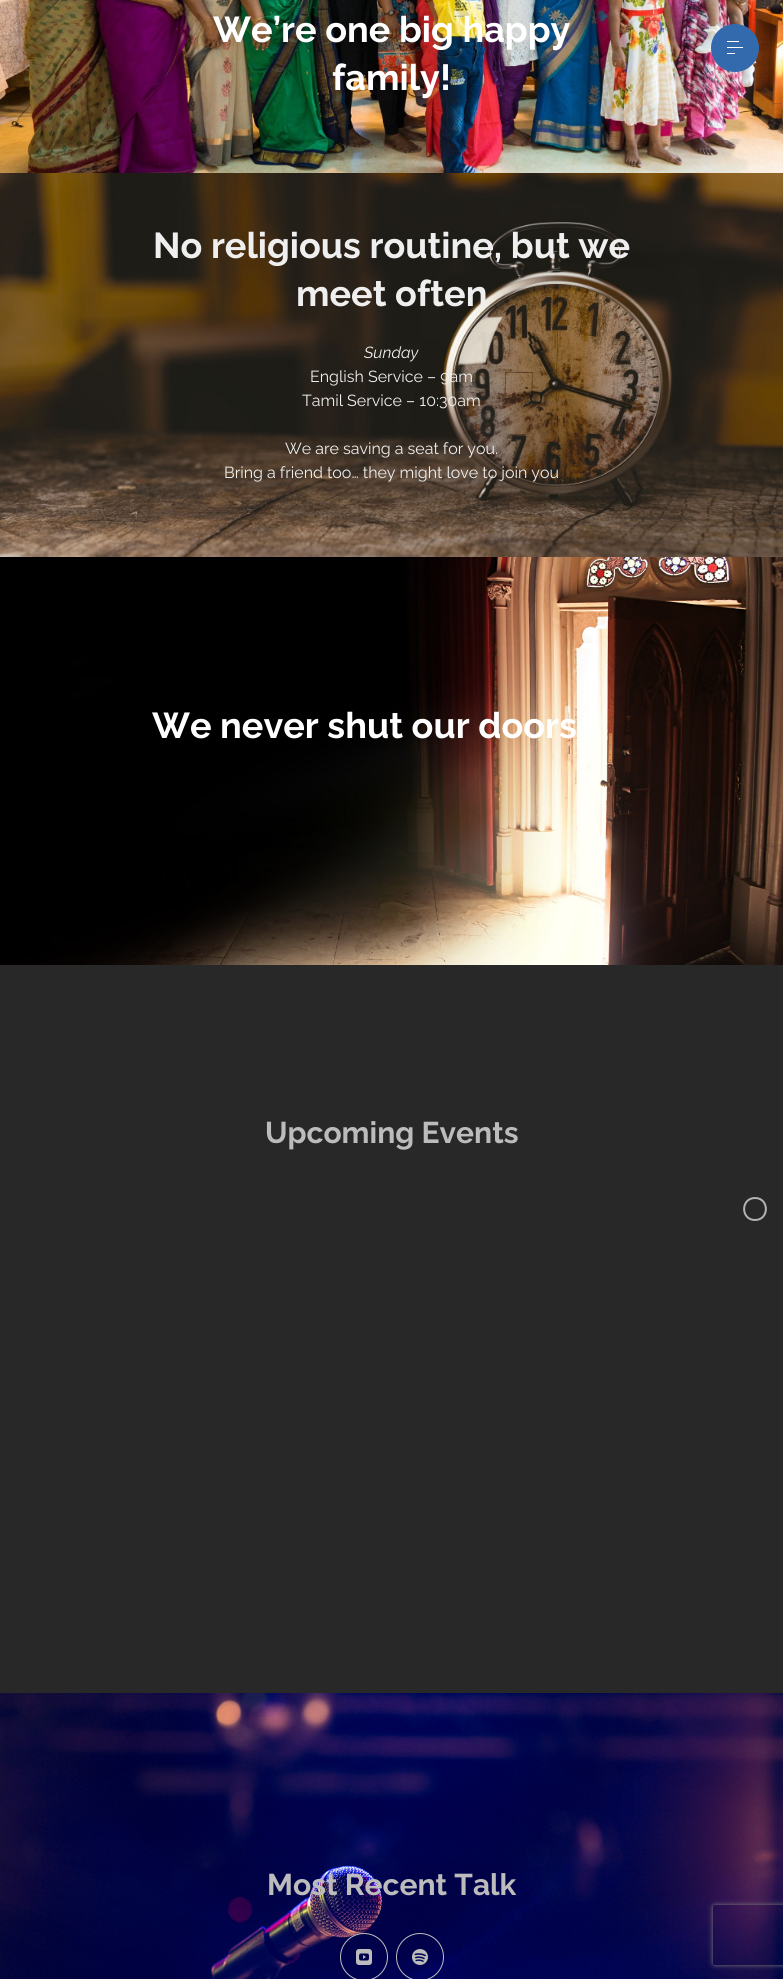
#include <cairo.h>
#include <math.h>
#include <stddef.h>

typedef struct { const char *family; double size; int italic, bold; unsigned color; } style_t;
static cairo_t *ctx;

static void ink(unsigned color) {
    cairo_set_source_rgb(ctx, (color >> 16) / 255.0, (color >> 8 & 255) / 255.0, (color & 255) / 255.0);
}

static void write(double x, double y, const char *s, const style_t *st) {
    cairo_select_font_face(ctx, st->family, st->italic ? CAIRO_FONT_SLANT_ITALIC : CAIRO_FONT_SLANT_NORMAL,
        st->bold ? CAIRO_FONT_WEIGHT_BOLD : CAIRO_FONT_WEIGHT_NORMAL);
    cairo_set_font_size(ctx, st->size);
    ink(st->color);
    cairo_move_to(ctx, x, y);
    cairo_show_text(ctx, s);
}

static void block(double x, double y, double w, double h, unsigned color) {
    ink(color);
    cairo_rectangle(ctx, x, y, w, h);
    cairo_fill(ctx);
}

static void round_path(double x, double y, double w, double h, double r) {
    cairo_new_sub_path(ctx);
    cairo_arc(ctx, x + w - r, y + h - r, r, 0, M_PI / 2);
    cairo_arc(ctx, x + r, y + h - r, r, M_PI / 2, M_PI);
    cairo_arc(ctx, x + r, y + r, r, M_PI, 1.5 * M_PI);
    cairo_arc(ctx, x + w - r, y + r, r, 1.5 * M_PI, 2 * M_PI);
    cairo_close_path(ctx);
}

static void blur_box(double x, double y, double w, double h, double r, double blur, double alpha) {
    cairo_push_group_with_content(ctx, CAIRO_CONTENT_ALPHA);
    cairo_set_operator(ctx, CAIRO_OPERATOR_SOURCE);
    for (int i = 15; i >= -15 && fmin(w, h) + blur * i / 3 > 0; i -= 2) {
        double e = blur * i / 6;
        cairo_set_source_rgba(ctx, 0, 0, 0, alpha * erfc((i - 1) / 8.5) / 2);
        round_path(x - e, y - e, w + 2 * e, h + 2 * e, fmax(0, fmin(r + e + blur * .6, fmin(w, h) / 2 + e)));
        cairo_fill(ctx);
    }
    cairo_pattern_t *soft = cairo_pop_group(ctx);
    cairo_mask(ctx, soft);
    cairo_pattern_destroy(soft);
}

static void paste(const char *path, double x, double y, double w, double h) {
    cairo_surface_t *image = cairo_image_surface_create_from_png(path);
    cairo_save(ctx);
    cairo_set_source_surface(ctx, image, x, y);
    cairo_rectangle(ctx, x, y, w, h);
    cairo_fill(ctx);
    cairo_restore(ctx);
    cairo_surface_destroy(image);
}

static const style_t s1 = {"Raleway", 36, 0, 1, 0xffffff};
static const style_t s2 = {"Raleway", 36, 0, 1, 0xefefef};
static const style_t s3 = {"Raleway", 16, 1, 0, 0xefefef};
static const style_t s4 = {"Raleway", 16, 0, 0, 0xefefef};
static const style_t s5 = {"Raleway", 30, 0, 1, 0xbcbcbc};

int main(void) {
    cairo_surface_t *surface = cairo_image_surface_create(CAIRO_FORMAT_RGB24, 783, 1979);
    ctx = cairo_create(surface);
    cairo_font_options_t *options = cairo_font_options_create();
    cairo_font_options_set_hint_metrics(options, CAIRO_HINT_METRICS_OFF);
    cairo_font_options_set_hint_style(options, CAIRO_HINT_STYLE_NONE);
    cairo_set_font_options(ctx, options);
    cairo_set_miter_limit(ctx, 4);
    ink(0xffffff);
    cairo_paint(ctx);
    paste("pic1.png", 0, 0, 783, 173);
    write(213, 42, "We’re one big happy", &s1);
    write(332, 90, "family!", &s1);
    paste("pic2.png", 0, 173, 783, 384);
    write(153, 258, "No religious routine, but we", &s2);
    write(296, 306, "meet often", &s2);
    write(364, 358, "Sunday", &s3);
    write(310, 382, "English Service – 9am", &s4);
    write(302, 406, "Tamil Service – 10:30am", &s4);
    write(285, 454, "We are saving a seat for you.", &s4);
    write(224, 478, "Bring a friend too… they might love to join you", &s4);
    paste("pic3.png", 0, 557, 783, 408);
    write(152, 738, "We never shut our doors", &s1);
    block(0, 965, 783, 728, 0x282828);
    write(265, 1143, "Upcoming Events", &s5);
    cairo_new_path(ctx);
    cairo_arc(ctx, 755, 1209, 11, 0, 2 * M_PI);
    ink(0x232323);
    cairo_stroke(ctx);
    cairo_save(ctx);
    cairo_rectangle(ctx, 743, 1197, 12, 24);
    cairo_clip(ctx);
    cairo_new_path(ctx);
    cairo_move_to(ctx, 755, 1220);
    cairo_curve_to(ctx, 740.5, 1220, 740.5, 1198, 755, 1198);
    cairo_curve_to(ctx, 769.5, 1198, 769.5, 1220, 755, 1220);
    cairo_close_path(ctx);
    ink(0xb4b4b4);
    cairo_stroke(ctx);
    cairo_restore(ctx);
    cairo_save(ctx);
    cairo_rectangle(ctx, 755, 1197, 12, 24);
    cairo_clip(ctx);
    cairo_new_path(ctx);
    cairo_move_to(ctx, 755, 1220);
    cairo_curve_to(ctx, 740.5, 1220, 740.5, 1198, 755, 1198);
    cairo_curve_to(ctx, 769.5, 1198, 769.5, 1220, 755, 1220);
    cairo_close_path(ctx);
    ink(0xb4b4b4);
    cairo_stroke(ctx);
    cairo_restore(ctx);
    paste("pic4.png", 0, 1693, 783, 286);
    write(267, 1895, "Most Recent Talk", &s5);
    cairo_new_path(ctx);
    cairo_arc(ctx, 364, 1957, 23.5, 0, 2 * M_PI);
    cairo_set_line_width(ctx, 1);
    cairo_stroke(ctx);
    paste("pic5.png", 356, 1949, 16, 16);
    cairo_arc(ctx, 420, 1957, 23.5, 0, 2 * M_PI);
    cairo_stroke(ctx);
    paste("pic6.png", 412, 1949, 16, 16);
    ink(0x336aae);
    cairo_arc(ctx, 735, 48, 24, 0, 2 * M_PI);
    cairo_fill(ctx);
    block(727, 47, 16, 1, 0xffffff);
    block(727, 41, 12, 1, 0xffffff);
    block(727, 53, 8, 1, 0xffffff);
    cairo_save(ctx);
    cairo_set_fill_rule(ctx, CAIRO_FILL_RULE_EVEN_ODD);
    cairo_new_path(ctx);
    cairo_move_to(ctx, 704, 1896);
    cairo_line_to(ctx, 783, 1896);
    cairo_line_to(ctx, 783, 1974);
    cairo_line_to(ctx, 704, 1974);
    cairo_close_path(ctx);
    cairo_move_to(ctx, 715, 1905);
    cairo_line_to(ctx, 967, 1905);
    cairo_curve_to(ctx, 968, 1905, 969, 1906, 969, 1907);
    cairo_line_to(ctx, 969, 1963);
    cairo_curve_to(ctx, 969, 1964, 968, 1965, 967, 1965);
    cairo_line_to(ctx, 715, 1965);
    cairo_curve_to(ctx, 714, 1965, 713, 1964, 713, 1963);
    cairo_line_to(ctx, 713, 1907);
    cairo_curve_to(ctx, 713, 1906, 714, 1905, 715, 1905);
    cairo_close_path(ctx);
    cairo_clip(ctx);
    ink(0x808080);
    blur_box(713, 1905, 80, 60, 2, 2.5, 1);
    cairo_restore(ctx);
    cairo_surface_write_to_png(surface, "screenshot.png");
    cairo_font_options_destroy(options);
    cairo_destroy(ctx);
    cairo_surface_destroy(surface);
    return 0;
}
